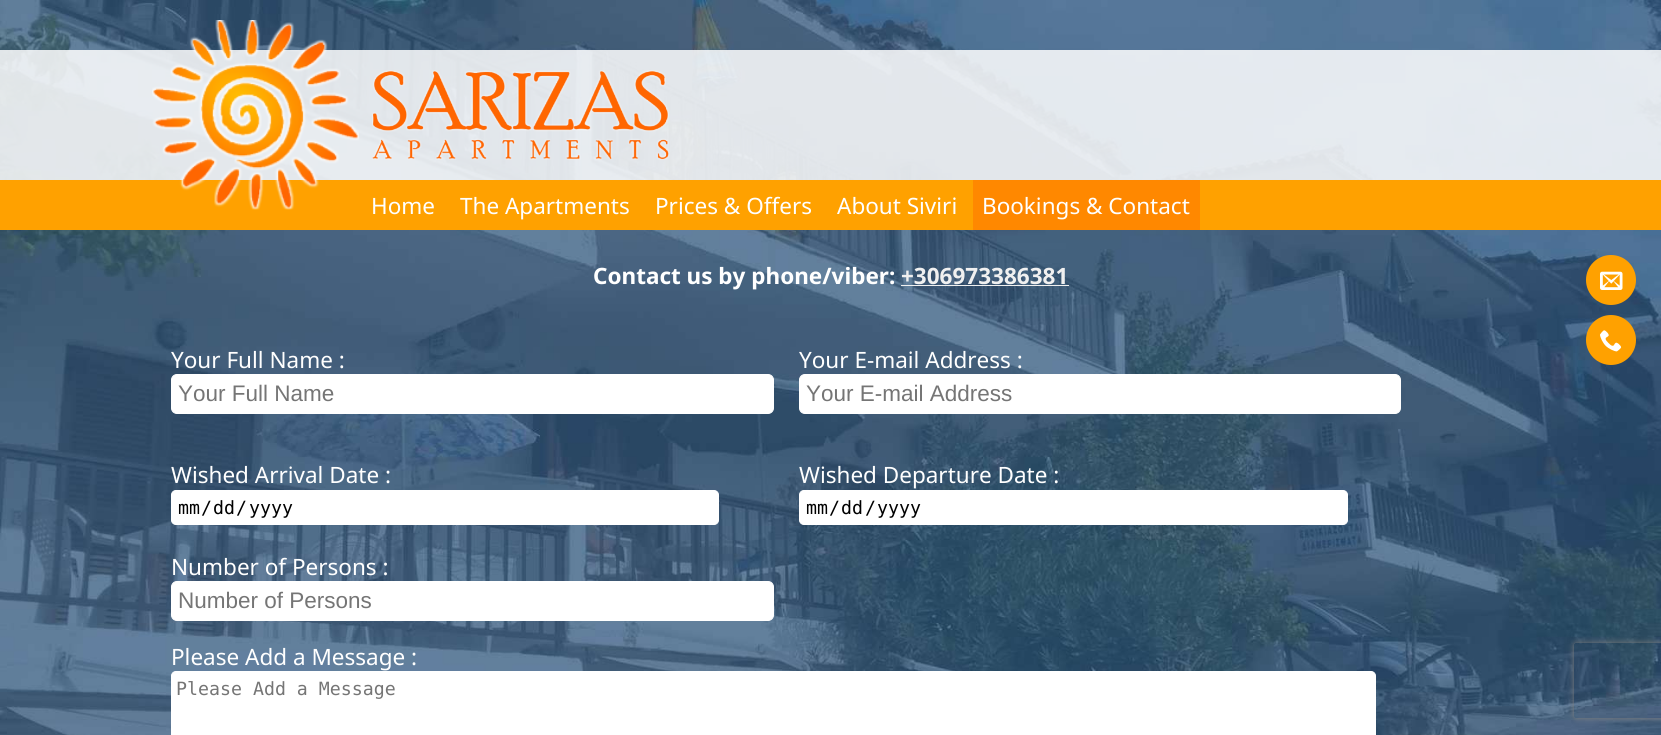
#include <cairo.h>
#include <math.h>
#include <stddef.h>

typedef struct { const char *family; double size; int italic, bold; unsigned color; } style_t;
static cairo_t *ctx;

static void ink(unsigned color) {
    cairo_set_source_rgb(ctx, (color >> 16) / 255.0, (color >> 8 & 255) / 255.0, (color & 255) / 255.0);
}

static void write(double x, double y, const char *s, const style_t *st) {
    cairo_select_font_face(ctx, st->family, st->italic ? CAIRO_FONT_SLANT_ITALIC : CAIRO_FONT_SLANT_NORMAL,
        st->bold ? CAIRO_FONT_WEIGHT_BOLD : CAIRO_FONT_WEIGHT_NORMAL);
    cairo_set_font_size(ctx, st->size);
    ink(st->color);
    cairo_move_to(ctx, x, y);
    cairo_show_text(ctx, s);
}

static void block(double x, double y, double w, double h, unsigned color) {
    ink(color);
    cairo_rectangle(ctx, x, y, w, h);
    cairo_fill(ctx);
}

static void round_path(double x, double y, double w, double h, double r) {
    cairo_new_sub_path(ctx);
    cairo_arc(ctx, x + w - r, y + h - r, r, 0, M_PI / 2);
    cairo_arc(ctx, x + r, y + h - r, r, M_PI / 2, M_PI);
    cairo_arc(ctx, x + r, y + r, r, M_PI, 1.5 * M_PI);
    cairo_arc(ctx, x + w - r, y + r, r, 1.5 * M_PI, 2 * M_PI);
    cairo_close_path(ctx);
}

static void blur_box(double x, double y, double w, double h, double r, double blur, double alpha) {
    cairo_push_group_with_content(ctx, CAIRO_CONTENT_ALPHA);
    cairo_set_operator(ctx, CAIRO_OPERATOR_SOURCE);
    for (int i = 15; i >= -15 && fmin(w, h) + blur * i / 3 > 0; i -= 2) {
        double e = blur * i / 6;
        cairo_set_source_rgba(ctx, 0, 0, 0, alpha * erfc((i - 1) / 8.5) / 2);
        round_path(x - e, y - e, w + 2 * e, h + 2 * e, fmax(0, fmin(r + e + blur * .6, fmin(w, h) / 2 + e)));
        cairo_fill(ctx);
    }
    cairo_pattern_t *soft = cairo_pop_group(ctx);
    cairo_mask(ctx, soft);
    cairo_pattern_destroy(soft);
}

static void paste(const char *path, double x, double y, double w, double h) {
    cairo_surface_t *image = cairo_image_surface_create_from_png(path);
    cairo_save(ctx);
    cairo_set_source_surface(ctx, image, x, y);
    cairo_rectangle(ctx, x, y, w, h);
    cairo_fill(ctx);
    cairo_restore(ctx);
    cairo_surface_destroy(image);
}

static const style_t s1 = {"Noto Sans", 22.5, 0, 0, 0xffffff};
static const style_t s2 = {"Noto Sans", 22.5, 0, 1, 0xffffff};
static const style_t s3 = {"Noto Sans", 22.5, 0, 1, 0xf0f0f0};
static const style_t s4 = {"Liberation Sans", 22.5, 0, 0, 0x757575};
static const style_t s5 = {"DejaVu Sans Mono", 18.25, 0, 0, 0x000000};
static const style_t s6 = {"DejaVu Sans Mono", 18.25, 0, 0, 0x757575};

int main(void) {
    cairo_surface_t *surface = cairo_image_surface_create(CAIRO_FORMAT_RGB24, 1661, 735);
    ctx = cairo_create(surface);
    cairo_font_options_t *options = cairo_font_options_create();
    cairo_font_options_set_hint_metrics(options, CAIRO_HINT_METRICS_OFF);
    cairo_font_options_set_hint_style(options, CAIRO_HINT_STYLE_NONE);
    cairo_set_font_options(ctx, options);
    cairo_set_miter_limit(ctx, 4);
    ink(0xffffff);
    cairo_paint(ctx);
    paste("pic3.png", 0, 0, 1661, 735);
    cairo_set_source_rgba(ctx, 1, 1, 1, 0.85);
    cairo_rectangle(ctx, 0, 50, 1661, 130);
    cairo_fill(ctx);
    block(0, 180, 1661, 50, 0xffa100);
    paste("pic1.png", 152, 20, 207, 190);
    paste("pic2.png", 372, 70, 298, 90);
    write(371, 214, "Home", &s1);
    write(460, 214, "The Apartments", &s1);
    write(655, 214, "Prices & Offers", &s1);
    write(837, 214, "About Siviri", &s1);
    block(973, 180, 227, 50, 0xff8800);
    write(982, 214, "Bookings & Contact", &s1);
    write(593, 284, "Contact us by phone/viber:", &s2);
    write(901, 284, "+306973386381", &s3);
    block(901, 285, 168, 1, 0xf0f0f0);
    write(171, 368, "Your Full Name :", &s1);
    round_path(171.5, 374.5, 602, 39, 5.5);
    cairo_fill_preserve(ctx);
    cairo_set_line_width(ctx, 1);
    cairo_stroke(ctx);
    write(178, 401, "Your Full Name", &s4);
    write(799, 368, "Your E-mail Address :", &s1);
    round_path(799.5, 374.5, 601, 39, 5.5);
    cairo_fill_preserve(ctx);
    cairo_stroke(ctx);
    write(806, 401, "Your E-mail Address", &s4);
    write(171, 483, "Wished Arrival Date :", &s1);
    round_path(171.5, 490.5, 547, 34, 4.5);
    cairo_fill_preserve(ctx);
    cairo_stroke(ctx);
    write(178, 514, "mm", &s5);
    write(201, 514, "/", &s5);
    write(213, 514, "dd", &s5);
    write(236, 514, "/", &s5);
    write(249, 514, "yyyy", &s5);
    write(799, 483, "Wished Departure Date :", &s1);
    round_path(799.5, 490.5, 548, 34, 4.5);
    cairo_fill_preserve(ctx);
    cairo_stroke(ctx);
    write(806, 514, "mm", &s5);
    write(829, 514, "/", &s5);
    write(841, 514, "dd", &s5);
    write(865, 514, "/", &s5);
    write(877, 514, "yyyy", &s5);
    write(171, 575, "Number of Persons :", &s1);
    round_path(171.5, 581.5, 602, 39, 5.5);
    cairo_fill_preserve(ctx);
    cairo_stroke(ctx);
    write(178, 608, "Number of Persons", &s4);
    write(171, 665, "Please Add a Message :", &s1);
    round_path(171.5, 671.5, 1204, 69, 4.5);
    cairo_fill_preserve(ctx);
    cairo_stroke(ctx);
    write(176, 695, "Please Add a Message", &s6);
    cairo_save(ctx);
    cairo_set_fill_rule(ctx, CAIRO_FILL_RULE_EVEN_ODD);
    cairo_new_path(ctx);
    cairo_move_to(ctx, 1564, 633);
    cairo_line_to(ctx, 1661, 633);
    cairo_line_to(ctx, 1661, 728);
    cairo_line_to(ctx, 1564, 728);
    cairo_close_path(ctx);
    cairo_move_to(ctx, 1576.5, 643);
    cairo_line_to(ctx, 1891.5, 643);
    cairo_curve_to(ctx, 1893, 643, 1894, 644, 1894, 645.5);
    cairo_line_to(ctx, 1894, 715.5);
    cairo_curve_to(ctx, 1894, 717, 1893, 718, 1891.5, 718);
    cairo_line_to(ctx, 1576.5, 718);
    cairo_curve_to(ctx, 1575, 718, 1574, 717, 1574, 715.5);
    cairo_line_to(ctx, 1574, 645.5);
    cairo_curve_to(ctx, 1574, 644, 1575, 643, 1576.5, 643);
    cairo_close_path(ctx);
    cairo_clip(ctx);
    ink(0x808080);
    blur_box(1574, 643, 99, 75, 2.5, 3, 1);
    cairo_restore(ctx);
    ink(0xffa100);
    cairo_arc(ctx, 1611, 280, 25, 0, 2 * M_PI);
    cairo_fill(ctx);
    paste("pic4.png", 1600, 271, 23, 19);
    cairo_arc(ctx, 1611, 340, 25, 0, 2 * M_PI);
    cairo_fill(ctx);
    paste("pic5.png", 1600, 330, 22, 22);
    cairo_surface_write_to_png(surface, "screenshot.png");
    cairo_font_options_destroy(options);
    cairo_destroy(ctx);
    cairo_surface_destroy(surface);
    return 0;
}
